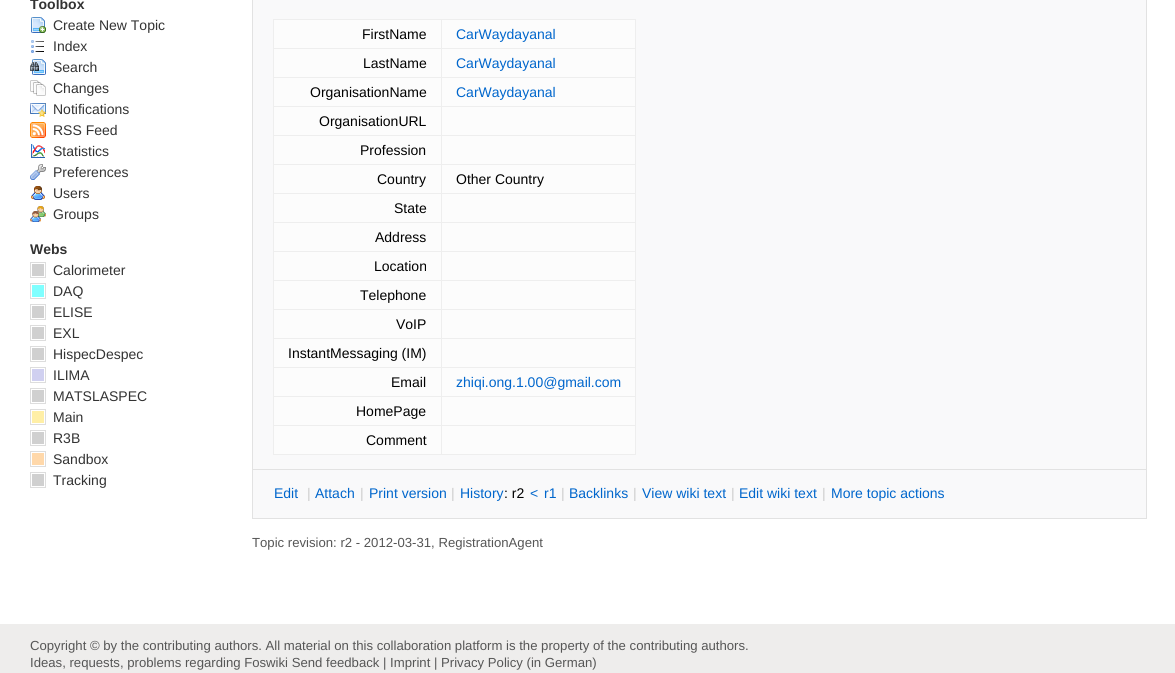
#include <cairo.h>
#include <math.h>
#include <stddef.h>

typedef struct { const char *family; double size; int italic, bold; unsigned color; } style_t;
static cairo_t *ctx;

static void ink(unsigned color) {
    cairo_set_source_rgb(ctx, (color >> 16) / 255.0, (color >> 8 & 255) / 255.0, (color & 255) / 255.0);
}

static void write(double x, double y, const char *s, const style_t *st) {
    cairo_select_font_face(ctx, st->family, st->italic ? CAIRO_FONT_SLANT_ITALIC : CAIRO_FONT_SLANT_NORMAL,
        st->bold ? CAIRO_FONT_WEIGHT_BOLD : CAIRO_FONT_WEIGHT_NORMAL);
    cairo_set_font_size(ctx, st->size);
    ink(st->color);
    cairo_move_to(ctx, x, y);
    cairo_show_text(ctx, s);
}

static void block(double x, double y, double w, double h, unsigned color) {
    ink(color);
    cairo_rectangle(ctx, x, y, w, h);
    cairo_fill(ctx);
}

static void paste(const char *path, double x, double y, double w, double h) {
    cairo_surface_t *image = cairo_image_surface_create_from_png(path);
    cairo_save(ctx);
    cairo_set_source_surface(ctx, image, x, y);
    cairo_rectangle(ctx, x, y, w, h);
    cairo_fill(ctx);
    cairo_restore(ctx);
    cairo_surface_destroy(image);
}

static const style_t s1 = {"Liberation Sans", 14, 0, 1, 0x333333};
static const style_t s2 = {"Liberation Sans", 14, 0, 0, 0x333333};
static const style_t s3 = {"Liberation Sans", 14, 0, 0, 0x000000};
static const style_t s4 = {"Liberation Sans", 14, 0, 0, 0x0066cc};
static const style_t s5 = {"Liberation Sans", 14, 0, 0, 0xcccccc};
static const style_t s6 = {"Liberation Sans", 13.15, 0, 0, 0x565656};

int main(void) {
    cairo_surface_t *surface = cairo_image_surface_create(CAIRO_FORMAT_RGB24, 1175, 673);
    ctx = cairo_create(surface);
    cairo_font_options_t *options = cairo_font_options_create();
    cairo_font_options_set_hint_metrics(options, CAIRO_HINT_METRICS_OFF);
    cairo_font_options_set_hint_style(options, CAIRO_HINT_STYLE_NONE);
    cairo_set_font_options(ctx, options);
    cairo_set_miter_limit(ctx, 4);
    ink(0xffffff);
    cairo_paint(ctx);
    write(30, 9, "Toolbox", &s1);
    paste("pic1.png", 31, 17, 15, 16);
    write(53, 30, "Create New Topic", &s2);
    paste("pic2.png", 31, 40, 13, 13);
    write(53, 51, "Index", &s2);
    paste("pic3.png", 30, 59, 16, 16);
    write(53, 72, "Search", &s2);
    paste("pic4.png", 30, 80, 16, 16);
    write(53, 93, "Changes", &s2);
    paste("pic5.png", 30, 103, 16, 14);
    write(53, 114, "Notifications", &s2);
    paste("pic6.png", 30, 122, 16, 16);
    write(53, 135, "RSS Feed", &s2);
    paste("pic7.png", 31, 144, 14, 14);
    write(53, 156, "Statistics", &s2);
    paste("pic8.png", 30, 164, 16, 16);
    write(53, 177, "Preferences", &s2);
    paste("pic9.png", 31, 186, 14, 14);
    write(53, 198, "Users", &s2);
    paste("pic10.png", 30, 206, 16, 16);
    write(53, 219, "Groups", &s2);
    write(30, 254, "Webs", &s1);
    block(32, 264, 12, 12, 0xd0d0d0);
    paste("pic11.png", 30, 262, 16, 16);
    write(53, 275, "Calorimeter", &s2);
    block(32, 285, 12, 12, 0x80ffff);
    paste("pic12.png", 30, 283, 16, 16);
    write(53, 296, "DAQ", &s2);
    block(32, 306, 12, 12, 0xd0d0d0);
    paste("pic11.png", 30, 304, 16, 16);
    write(53, 317, "ELISE", &s2);
    block(32, 327, 12, 12, 0xd0d0d0);
    paste("pic11.png", 30, 325, 16, 16);
    write(53, 338, "EXL", &s2);
    block(32, 348, 12, 12, 0xd0d0d0);
    paste("pic11.png", 30, 346, 16, 16);
    write(53, 359, "HispecDespec", &s2);
    block(32, 369, 12, 12, 0xd0d0f0);
    paste("pic13.png", 30, 367, 16, 16);
    write(53, 380, "ILIMA", &s2);
    block(32, 390, 12, 12, 0xd0d0d0);
    paste("pic11.png", 30, 388, 16, 16);
    write(53, 401, "MATSLASPEC", &s2);
    block(32, 411, 12, 12, 0xffefa6);
    paste("pic14.png", 30, 409, 16, 16);
    write(53, 422, "Main", &s2);
    block(32, 432, 12, 12, 0xd0d0d0);
    paste("pic11.png", 30, 430, 16, 16);
    write(53, 443, "R3B", &s2);
    block(32, 453, 12, 12, 0xffd8aa);
    paste("pic15.png", 30, 451, 16, 16);
    write(53, 464, "Sandbox", &s2);
    block(32, 474, 12, 12, 0xd0d0d0);
    paste("pic11.png", 30, 472, 16, 16);
    write(53, 485, "Tracking", &s2);
    ink(0xf9f9fa);
    cairo_rectangle(ctx, 252.5, -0.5, 894, 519);
    cairo_fill_preserve(ctx);
    ink(0xe2e2e2);
    cairo_set_line_width(ctx, 1);
    cairo_stroke(ctx);
    block(274, 20, 361, 434, 0xfcfcfc);
    block(273, 19, 363, 1, 0xeeeeee);
    block(635, 19, 1, 436, 0xeeeeee);
    block(273, 454, 363, 1, 0xeeeeee);
    block(273, 19, 1, 436, 0xeeeeee);
    write(362, 39, "FirstName", &s3);
    block(441, 48, 195, 1, 0xeeeeee);
    block(441, 77, 195, 1, 0xeeeeee);
    block(441, 106, 195, 1, 0xeeeeee);
    block(441, 135, 195, 1, 0xeeeeee);
    block(441, 164, 195, 1, 0xeeeeee);
    block(441, 193, 195, 1, 0xeeeeee);
    block(441, 222, 195, 1, 0xeeeeee);
    block(441, 251, 195, 1, 0xeeeeee);
    block(441, 280, 195, 1, 0xeeeeee);
    block(441, 309, 195, 1, 0xeeeeee);
    block(441, 338, 195, 1, 0xeeeeee);
    block(441, 367, 195, 1, 0xeeeeee);
    block(441, 396, 195, 1, 0xeeeeee);
    block(441, 425, 195, 1, 0xeeeeee);
    block(441, 425, 1, 30, 0xeeeeee);
    block(273, 425, 169, 1, 0xeeeeee);
    block(441, 396, 1, 30, 0xeeeeee);
    block(273, 396, 169, 1, 0xeeeeee);
    block(441, 367, 1, 30, 0xeeeeee);
    block(273, 367, 169, 1, 0xeeeeee);
    block(441, 338, 1, 30, 0xeeeeee);
    block(273, 338, 169, 1, 0xeeeeee);
    block(441, 309, 1, 30, 0xeeeeee);
    block(273, 309, 169, 1, 0xeeeeee);
    block(441, 280, 1, 30, 0xeeeeee);
    block(273, 280, 169, 1, 0xeeeeee);
    block(441, 251, 1, 30, 0xeeeeee);
    block(273, 251, 169, 1, 0xeeeeee);
    block(441, 222, 1, 30, 0xeeeeee);
    block(273, 222, 169, 1, 0xeeeeee);
    block(441, 193, 1, 30, 0xeeeeee);
    block(273, 193, 169, 1, 0xeeeeee);
    block(441, 164, 1, 30, 0xeeeeee);
    block(273, 164, 169, 1, 0xeeeeee);
    block(441, 135, 1, 30, 0xeeeeee);
    block(273, 135, 169, 1, 0xeeeeee);
    block(441, 106, 1, 30, 0xeeeeee);
    block(273, 106, 169, 1, 0xeeeeee);
    block(441, 77, 1, 30, 0xeeeeee);
    block(273, 77, 169, 1, 0xeeeeee);
    block(441, 48, 1, 30, 0xeeeeee);
    block(273, 48, 169, 1, 0xeeeeee);
    block(441, 19, 1, 30, 0xeeeeee);
    write(456, 39, "CarWaydayanal", &s4);
    write(363, 68, "LastName", &s3);
    write(456, 68, "CarWaydayanal", &s4);
    write(310, 97, "OrganisationName", &s3);
    write(456, 97, "CarWaydayanal", &s4);
    write(319, 126, "OrganisationURL", &s3);
    write(360, 155, "Profession", &s3);
    write(377, 184, "Country", &s3);
    write(456, 184, "Other Country", &s3);
    write(394, 213, "State", &s3);
    write(375, 242, "Address", &s3);
    write(374, 271, "Location", &s3);
    write(360, 300, "Telephone", &s3);
    write(396, 329, "VoIP", &s3);
    write(288, 358, "InstantMessaging (IM)", &s3);
    write(391, 387, "Email", &s3);
    write(456, 387, "zhiqi.ong.1.00@gmail.com", &s4);
    write(356, 416, "HomePage", &s3);
    write(366, 445, "Comment", &s3);
    block(253, 469, 893, 1, 0xe2e2e2);
    write(274, 498, "Edit", &s4);
    write(307, 498, "|", &s5);
    write(315, 498, "Attach", &s4);
    write(360, 498, "|", &s5);
    write(369, 498, "Print version", &s4);
    write(451, 498, "|", &s5);
    write(460, 498, "History", &s4);
    write(504, 498, ": r2", &s3);
    write(530, 498, "<", &s4);
    write(544, 498, "r1", &s4);
    write(561, 498, "|", &s5);
    write(569, 498, "Backlinks", &s4);
    write(633, 498, "|", &s5);
    write(642, 498, "View wiki text", &s4);
    write(731, 498, "|", &s5);
    write(739, 498, "Edit wiki text", &s4);
    write(822, 498, "|", &s5);
    write(831, 498, "More topic actions", &s4);
    write(252, 547, "Topic revision: r2 - 2012-03-31, RegistrationAgent", &s6);
    block(0, 624, 1175, 49, 0xeeedec);
    write(30, 650, "Copyright © by the contributing authors. All material on this collaboration platform is the property of the contributing authors.", &s6);
    write(30, 667, "Ideas, requests, problems regarding Foswiki Send feedback | Imprint | Privacy Policy (in German)", &s6);
    cairo_surface_write_to_png(surface, "screenshot.png");
    cairo_font_options_destroy(options);
    cairo_destroy(ctx);
    cairo_surface_destroy(surface);
    return 0;
}
